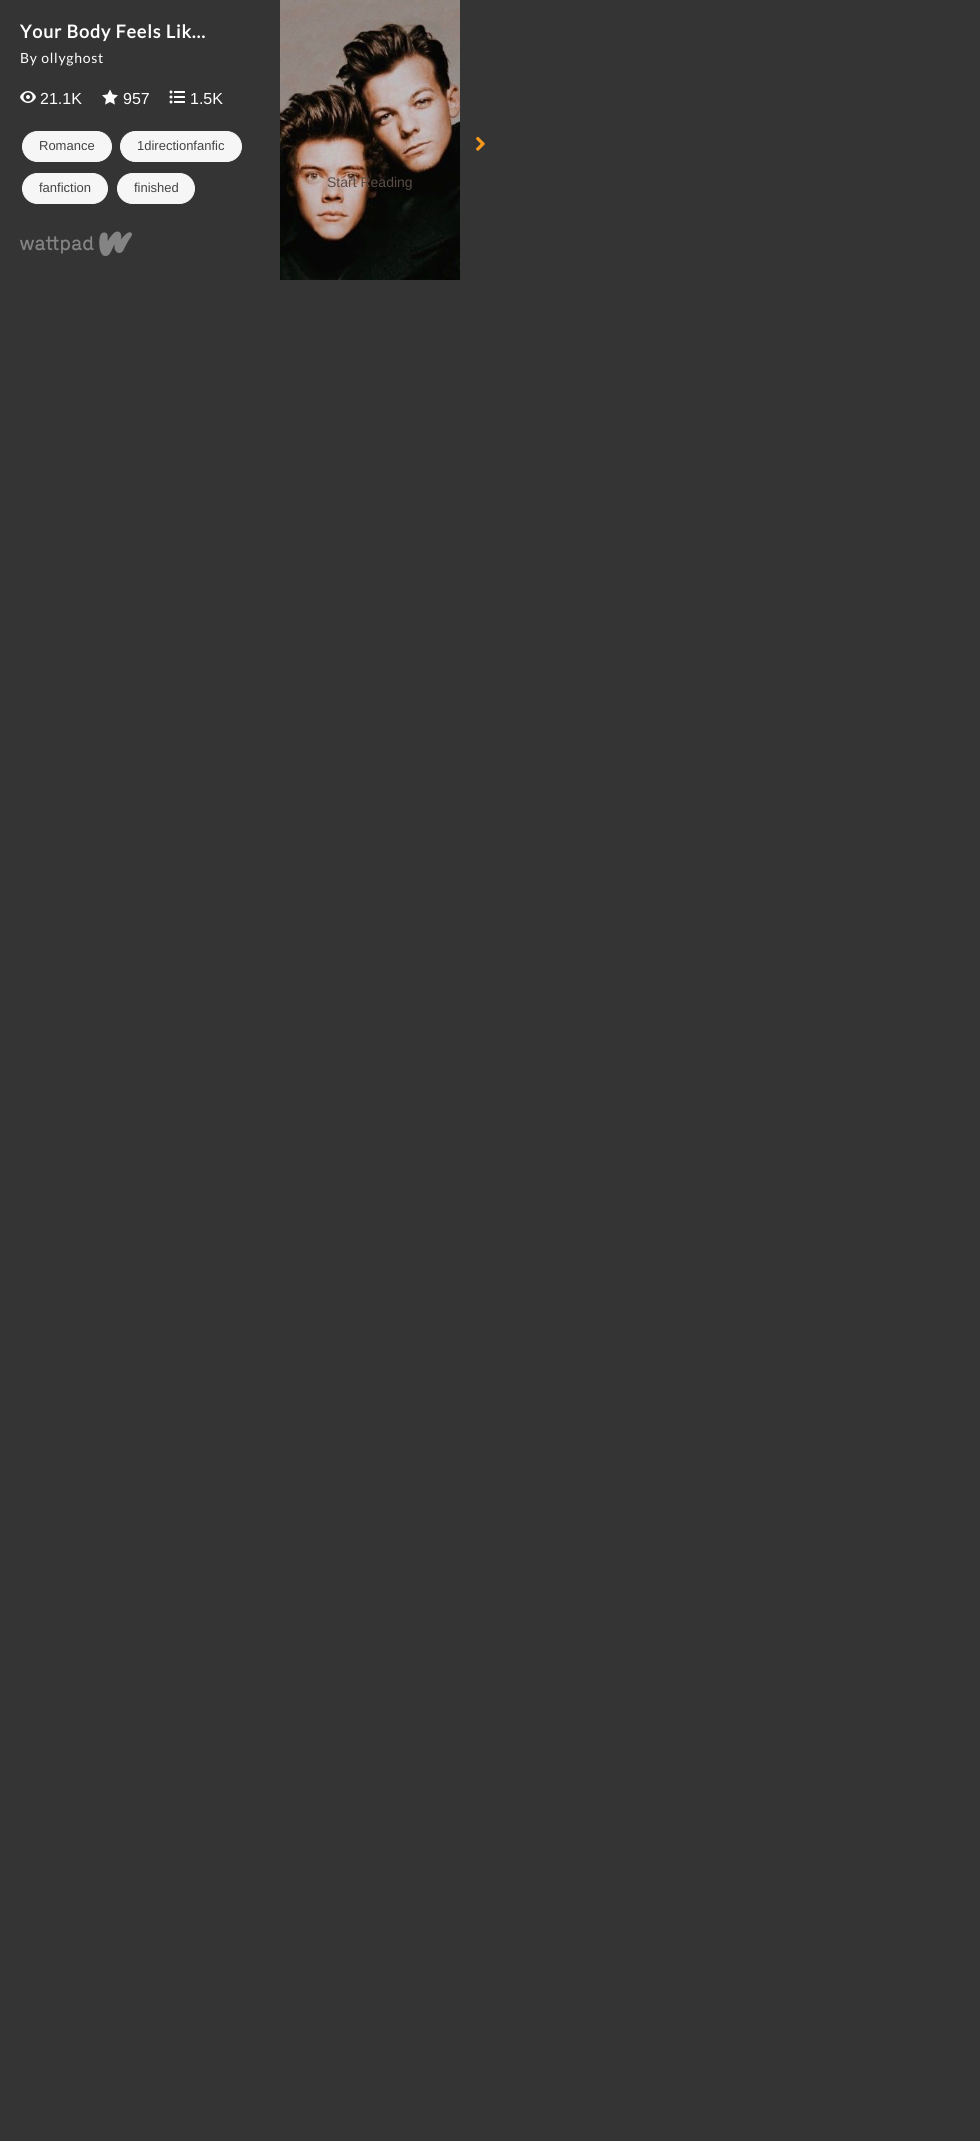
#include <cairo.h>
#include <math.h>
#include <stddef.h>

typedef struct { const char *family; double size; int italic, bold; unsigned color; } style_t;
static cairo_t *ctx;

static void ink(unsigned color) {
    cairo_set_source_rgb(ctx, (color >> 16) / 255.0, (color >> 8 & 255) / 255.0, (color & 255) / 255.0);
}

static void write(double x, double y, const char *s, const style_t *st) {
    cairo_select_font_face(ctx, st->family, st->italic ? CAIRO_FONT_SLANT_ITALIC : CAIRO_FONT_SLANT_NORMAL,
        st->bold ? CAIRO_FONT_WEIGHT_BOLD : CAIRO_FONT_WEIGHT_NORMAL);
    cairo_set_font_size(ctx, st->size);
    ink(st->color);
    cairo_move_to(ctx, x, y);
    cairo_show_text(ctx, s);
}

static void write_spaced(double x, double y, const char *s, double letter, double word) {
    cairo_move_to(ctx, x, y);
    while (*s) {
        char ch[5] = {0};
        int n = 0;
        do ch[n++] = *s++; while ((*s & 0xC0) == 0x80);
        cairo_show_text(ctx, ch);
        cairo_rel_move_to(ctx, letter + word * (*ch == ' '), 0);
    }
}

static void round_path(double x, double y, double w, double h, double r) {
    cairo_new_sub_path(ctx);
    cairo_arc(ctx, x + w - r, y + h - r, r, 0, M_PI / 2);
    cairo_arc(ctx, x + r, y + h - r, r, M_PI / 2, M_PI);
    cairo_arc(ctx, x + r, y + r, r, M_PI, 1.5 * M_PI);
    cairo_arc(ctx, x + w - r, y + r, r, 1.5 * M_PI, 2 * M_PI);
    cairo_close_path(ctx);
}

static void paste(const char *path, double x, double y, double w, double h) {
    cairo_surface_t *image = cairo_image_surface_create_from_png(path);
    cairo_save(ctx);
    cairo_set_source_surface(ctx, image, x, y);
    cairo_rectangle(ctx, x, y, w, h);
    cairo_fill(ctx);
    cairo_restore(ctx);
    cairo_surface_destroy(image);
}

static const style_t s1 = {"Liberation Sans", 16, 0, 0, 0xffffff};
static const style_t s2 = {"Liberation Sans", 13, 0, 0, 0x444444};
static const style_t s3 = {"Liberation Sans", 14, 0, 0, 0x5a4c45};

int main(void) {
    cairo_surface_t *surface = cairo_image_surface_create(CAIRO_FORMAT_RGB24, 980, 2141);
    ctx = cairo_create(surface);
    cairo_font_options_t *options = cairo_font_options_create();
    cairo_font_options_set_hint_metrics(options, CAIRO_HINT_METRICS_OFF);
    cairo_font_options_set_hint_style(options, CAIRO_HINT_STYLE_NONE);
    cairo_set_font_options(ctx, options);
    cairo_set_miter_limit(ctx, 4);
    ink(0x343434);
    cairo_paint(ctx);
    cairo_select_font_face(ctx, "Lato", CAIRO_FONT_SLANT_NORMAL, CAIRO_FONT_WEIGHT_BOLD);
    cairo_set_font_size(ctx, 18);
    ink(0xffffff);
    write_spaced(20, 38, "Your Body Feels Lik...", 0.9, 0);
    cairo_select_font_face(ctx, "Lato", CAIRO_FONT_SLANT_NORMAL, CAIRO_FONT_WEIGHT_NORMAL);
    cairo_set_font_size(ctx, 14);
    write_spaced(20, 63, "By ollyghost", 0.75, 0);
    paste("pic1.png", 20, 91, 16, 12);
    write(40, 104, "21.1K", &s1);
    paste("pic2.png", 102, 89, 16, 16);
    write(123, 104, "957", &s1);
    paste("pic3.png", 169, 90, 16, 14);
    write(190, 104, "1.5K", &s1);
    ink(0xf6f6f7);
    round_path(22.5, 131.5, 89, 30, 15);
    cairo_fill_preserve(ctx);
    cairo_set_line_width(ctx, 1);
    cairo_stroke(ctx);
    write(39, 150, "Romance", &s2);
    ink(0xf6f6f7);
    round_path(120.5, 131.5, 121, 30, 15);
    cairo_fill_preserve(ctx);
    cairo_stroke(ctx);
    write(137, 150, "1directionfanfic", &s2);
    ink(0xf6f6f7);
    round_path(22.5, 173.5, 85, 30, 15);
    cairo_fill_preserve(ctx);
    cairo_stroke(ctx);
    write(39, 192, "fanfiction", &s2);
    ink(0xf6f6f7);
    round_path(117.5, 173.5, 77, 30, 15);
    cairo_fill_preserve(ctx);
    cairo_stroke(ctx);
    write(134, 192, "finished", &s2);
    paste("pic4.png", 20, 231, 112, 25);
    paste("pic5.png", 476, 136, 9, 15);
    paste("pic6.png", 280, 0, 180, 280);
    write(327, 187, "Start Reading", &s3);
    cairo_surface_write_to_png(surface, "screenshot.png");
    cairo_font_options_destroy(options);
    cairo_destroy(ctx);
    cairo_surface_destroy(surface);
    return 0;
}
